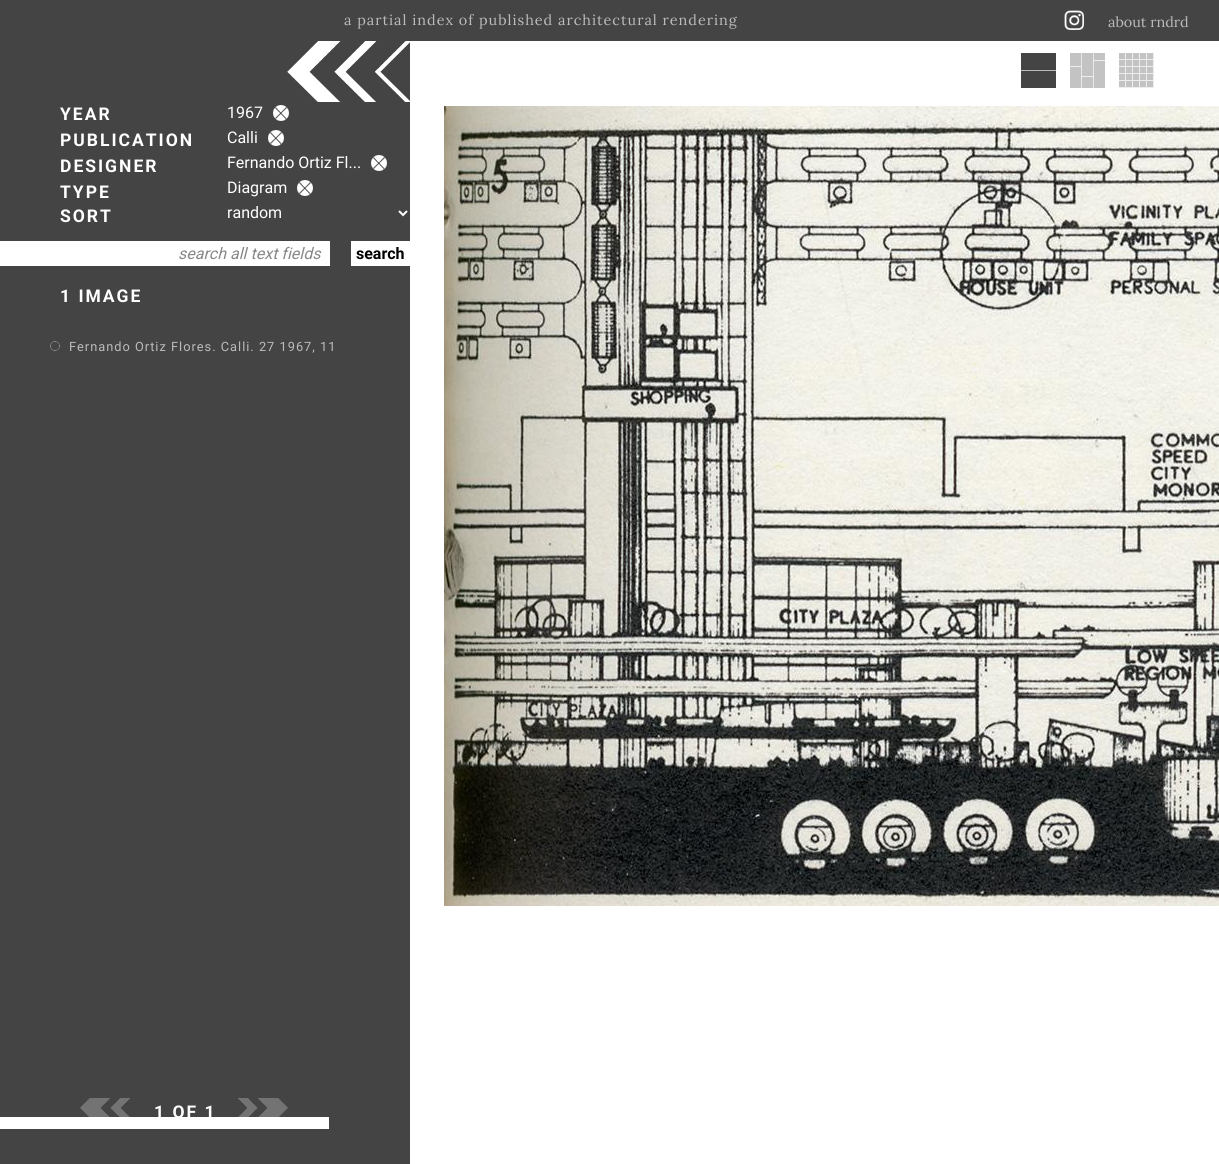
#include <cairo.h>
#include <math.h>
#include <stddef.h>

typedef struct { const char *family; double size; int italic, bold; unsigned color; } style_t;
static cairo_t *ctx;

static void ink(unsigned color) {
    cairo_set_source_rgb(ctx, (color >> 16) / 255.0, (color >> 8 & 255) / 255.0, (color & 255) / 255.0);
}

static void write(double x, double y, const char *s, const style_t *st) {
    cairo_select_font_face(ctx, st->family, st->italic ? CAIRO_FONT_SLANT_ITALIC : CAIRO_FONT_SLANT_NORMAL,
        st->bold ? CAIRO_FONT_WEIGHT_BOLD : CAIRO_FONT_WEIGHT_NORMAL);
    cairo_set_font_size(ctx, st->size);
    ink(st->color);
    cairo_move_to(ctx, x, y);
    cairo_show_text(ctx, s);
}

static void write_spaced(double x, double y, const char *s, double letter, double word) {
    cairo_move_to(ctx, x, y);
    while (*s) {
        char ch[5] = {0};
        int n = 0;
        do ch[n++] = *s++; while ((*s & 0xC0) == 0x80);
        cairo_show_text(ctx, ch);
        cairo_rel_move_to(ctx, letter + word * (*ch == ' '), 0);
    }
}

static void block(double x, double y, double w, double h, unsigned color) {
    ink(color);
    cairo_rectangle(ctx, x, y, w, h);
    cairo_fill(ctx);
}

static void paste(const char *path, double x, double y, double w, double h) {
    cairo_surface_t *image = cairo_image_surface_create_from_png(path);
    cairo_save(ctx);
    cairo_set_source_surface(ctx, image, x, y);
    cairo_rectangle(ctx, x, y, w, h);
    cairo_fill(ctx);
    cairo_restore(ctx);
    cairo_surface_destroy(image);
}

static const style_t s1 = {"Lora", 14.4, 0, 0, 0xbbbbbb};
static const style_t s2 = {"Roboto", 16, 0, 0, 0xffffff};
static const style_t s3 = {"Roboto", 16, 1, 0, 0x888888};
static const style_t s4 = {"Roboto", 16, 0, 1, 0x000000};

int main(void) {
    cairo_surface_t *surface = cairo_image_surface_create(CAIRO_FORMAT_RGB24, 1219, 1164);
    ctx = cairo_create(surface);
    cairo_font_options_t *options = cairo_font_options_create();
    cairo_font_options_set_hint_metrics(options, CAIRO_HINT_METRICS_OFF);
    cairo_font_options_set_hint_style(options, CAIRO_HINT_STYLE_NONE);
    cairo_set_font_options(ctx, options);
    cairo_set_miter_limit(ctx, 4);
    ink(0x444444);
    cairo_paint(ctx);
    cairo_select_font_face(ctx, "Lora", CAIRO_FONT_SLANT_NORMAL, CAIRO_FONT_WEIGHT_NORMAL);
    cairo_set_font_size(ctx, 14.4);
    ink(0xbbbbbb);
    write_spaced(344, 25, "a partial index of published architectural rendering", 1, 0);
    paste("pic1.png", 1064, 10, 20, 20);
    write(1108, 27, "about rndrd", &s1);
    cairo_select_font_face(ctx, "Roboto", CAIRO_FONT_SLANT_NORMAL, CAIRO_FONT_WEIGHT_BOLD);
    cairo_set_font_size(ctx, 17.5);
    ink(0xffffff);
    write_spaced(60, 120, "YEAR", 2, 0);
    write_spaced(60, 146, "PUBLICATION", 2, 0);
    write_spaced(60, 172, "DESIGNER", 2, 0);
    write_spaced(60, 198, "TYPE", 2, 0);
    write_spaced(60, 222, "SORT", 2, 0);
    write(227, 118, "1967", &s2);
    paste("pic2.png", 273, 105, 16, 16);
    write(227, 143, "Calli", &s2);
    paste("pic2.png", 268, 130, 16, 16);
    write(227, 168, "Fernando Ortiz Fl...", &s2);
    paste("pic2.png", 371, 155, 16, 16);
    write(227, 193, "Diagram", &s2);
    paste("pic2.png", 297, 180, 16, 16);
    cairo_new_path(ctx);
    cairo_move_to(ctx, 399, 211);
    cairo_line_to(ctx, 403, 215);
    cairo_line_to(ctx, 407, 211);
    cairo_stroke(ctx);
    write(227, 218, "random", &s2);
    block(0, 241, 330, 25, 0xffffff);
    write(178, 259, "search all text fields", &s3);
    block(351, 241, 59, 25, 0xffffff);
    write(356, 259, "search", &s4);
    cairo_set_font_size(ctx, 17.5);
    ink(0xffffff);
    write_spaced(60, 302, "1 IMAGE", 2, 0);
    paste("pic3.png", 50, 341, 10, 10);
    cairo_select_font_face(ctx, "Roboto", CAIRO_FONT_SLANT_NORMAL, CAIRO_FONT_WEIGHT_NORMAL);
    cairo_set_font_size(ctx, 12.8);
    ink(0xbbbbbb);
    write_spaced(69, 351, "Fernando Ortiz Flores. Calli. 27 1967, 11", 1, 0);
    paste("pic4.png", 80, 1098, 51, 19);
    block(0, 1117, 329, 12, 0xffffff);
    cairo_select_font_face(ctx, "Roboto", CAIRO_FONT_SLANT_NORMAL, CAIRO_FONT_WEIGHT_BOLD);
    cairo_set_font_size(ctx, 17.5);
    write_spaced(154, 1118, "1 OF 1", 2, 0);
    paste("pic5.png", 237, 1098, 51, 19);
    block(410, 41, 809, 1123, 0xffffff);
    paste("pic6.png", 287, 41, 123, 61);
    block(1021, 70, 35, 1, 0xbbbbbb);
    paste("pic7.png", 1021, 53, 35, 35);
    block(1070, 53, 35, 35, 0xeeeeee);
    paste("pic8.png", 1070, 53, 35, 35);
    block(1119, 53, 35, 35, 0xeeeeee);
    paste("pic9.png", 1119, 53, 34, 34);
    paste("pic10.png", 444, 106, 775, 800);
    cairo_surface_write_to_png(surface, "screenshot.png");
    cairo_font_options_destroy(options);
    cairo_destroy(ctx);
    cairo_surface_destroy(surface);
    return 0;
}
